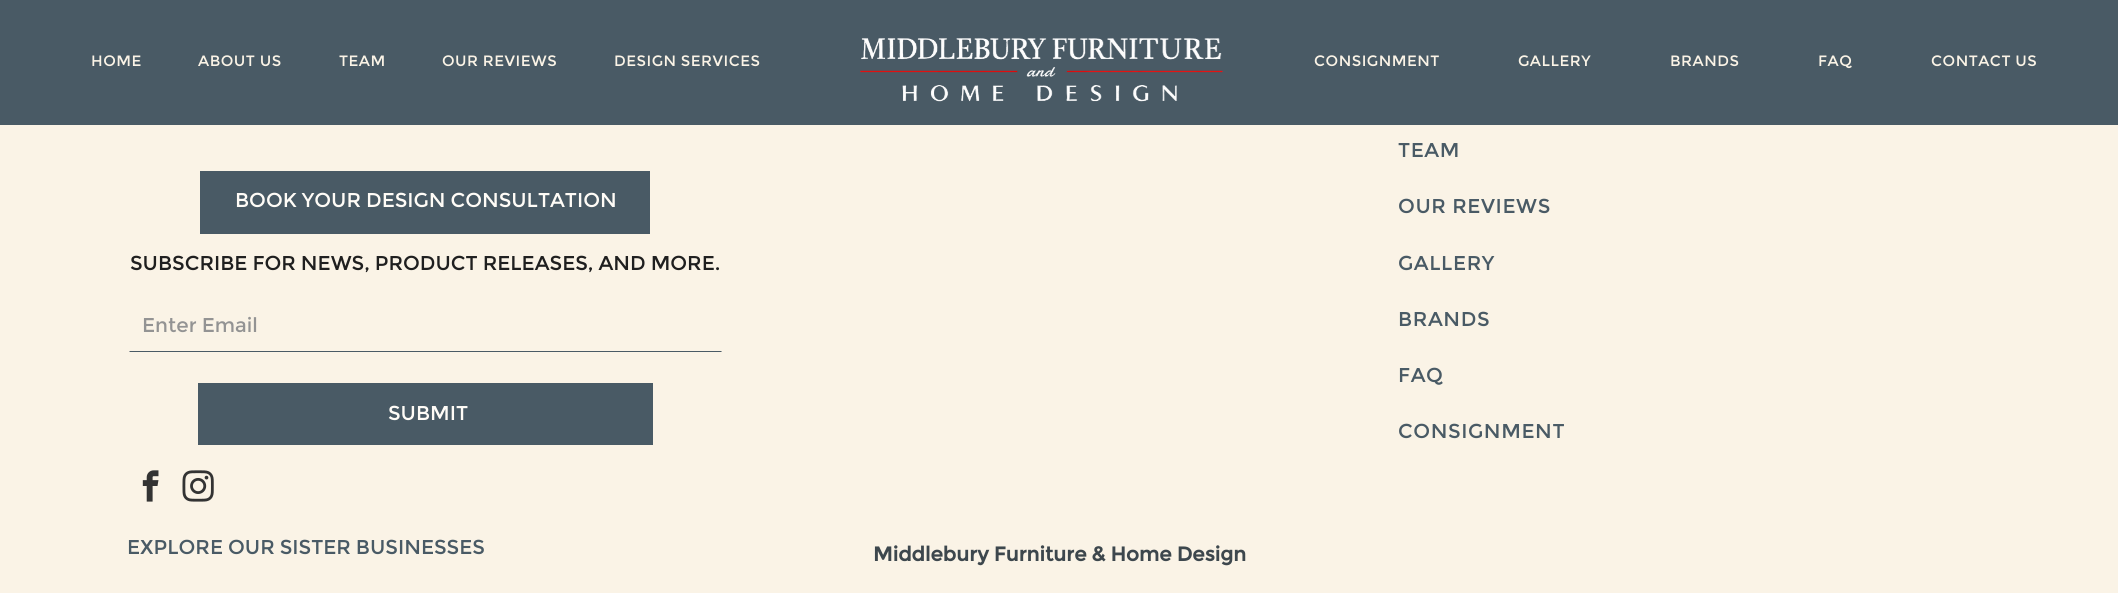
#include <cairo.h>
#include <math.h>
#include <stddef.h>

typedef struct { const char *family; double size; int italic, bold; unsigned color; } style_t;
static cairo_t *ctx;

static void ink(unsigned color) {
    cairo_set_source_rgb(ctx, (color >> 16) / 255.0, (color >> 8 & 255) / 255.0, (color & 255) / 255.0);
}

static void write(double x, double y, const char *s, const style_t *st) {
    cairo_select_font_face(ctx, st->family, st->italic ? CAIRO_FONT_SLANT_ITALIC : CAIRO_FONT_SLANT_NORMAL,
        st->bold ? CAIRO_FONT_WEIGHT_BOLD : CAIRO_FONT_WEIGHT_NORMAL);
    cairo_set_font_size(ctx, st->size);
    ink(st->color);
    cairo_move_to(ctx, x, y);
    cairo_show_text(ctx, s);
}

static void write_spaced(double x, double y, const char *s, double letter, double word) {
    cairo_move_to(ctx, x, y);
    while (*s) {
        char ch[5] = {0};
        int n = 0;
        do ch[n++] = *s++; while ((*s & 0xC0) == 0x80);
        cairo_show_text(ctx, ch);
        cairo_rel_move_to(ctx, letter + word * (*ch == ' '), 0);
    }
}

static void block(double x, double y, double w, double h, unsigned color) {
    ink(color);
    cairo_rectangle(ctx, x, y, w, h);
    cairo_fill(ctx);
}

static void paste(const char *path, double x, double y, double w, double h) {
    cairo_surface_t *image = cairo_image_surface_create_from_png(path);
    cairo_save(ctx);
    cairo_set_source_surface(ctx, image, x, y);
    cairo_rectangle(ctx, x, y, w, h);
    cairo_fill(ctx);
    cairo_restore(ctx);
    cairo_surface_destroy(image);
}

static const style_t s1 = {"Myanmar Khyay", 20, 0, 0, 0xfffcf7};
static const style_t s2 = {"Myanmar Khyay", 20, 0, 0, 0x1f1f1f};
static const style_t s3 = {"Myanmar Khyay", 20, 0, 0, 0x939393};
static const style_t s4 = {"Myanmar Khyay", 20, 0, 0, 0x495a65};
static const style_t s5 = {"Myanmar Khyay", 20, 0, 1, 0x3d474d};

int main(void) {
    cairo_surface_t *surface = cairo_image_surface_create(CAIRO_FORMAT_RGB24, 2118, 593);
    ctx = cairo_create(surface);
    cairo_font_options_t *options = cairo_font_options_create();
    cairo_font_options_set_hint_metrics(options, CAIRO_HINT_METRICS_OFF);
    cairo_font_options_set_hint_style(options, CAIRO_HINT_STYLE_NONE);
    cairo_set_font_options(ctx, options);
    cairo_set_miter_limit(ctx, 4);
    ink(0xfaf3e6);
    cairo_paint(ctx);
    block(0, 0, 2118, 125, 0x495a65);
    cairo_select_font_face(ctx, "Myanmar Khyay", CAIRO_FONT_SLANT_NORMAL, CAIRO_FONT_WEIGHT_NORMAL);
    cairo_set_font_size(ctx, 15);
    ink(0xfaf3e6);
    write_spaced(91, 66, "HOME", 0.5, 0);
    write_spaced(198, 66, "ABOUT US", 0.5, 0);
    write_spaced(339, 66, "TEAM", 0.5, 0);
    write_spaced(442, 66, "OUR REVIEWS", 0.5, 0);
    write_spaced(614, 66, "DESIGN SERVICES", 0.5, 0);
    paste("pic1.png", 860, 38, 363, 64);
    write_spaced(1314, 66, "CONSIGNMENT", 0.5, 0);
    write_spaced(1518, 66, "GALLERY", 0.5, 0);
    write_spaced(1670, 66, "BRANDS", 0.5, 0);
    write_spaced(1818, 66, "FAQ", 0.5, 0);
    write_spaced(1931, 66, "CONTACT US", 0.5, 0);
    block(200, 171, 450, 63, 0x495a65);
    write(235, 207, "BOOK YOUR DESIGN CONSULTATION", &s1);
    write(130, 270, "SUBSCRIBE FOR NEWS, PRODUCT RELEASES, AND MORE.", &s2);
    ink(0x495a65);
    cairo_new_path(ctx);
    cairo_move_to(ctx, 722, 352);
    cairo_line_to(ctx, 129, 352);
    cairo_line_to(ctx, 130, 351);
    cairo_line_to(ctx, 721, 351);
    cairo_close_path(ctx);
    cairo_fill(ctx);
    write(142, 332, "Enter Email", &s3);
    block(198, 383, 455, 62, 0x495a65);
    write(388, 420, "SUBMIT", &s1);
    paste("pic2.png", 142, 470, 17, 32);
    paste("pic3.png", 182, 470, 32, 32);
    write(127, 554, "EXPLORE OUR SISTER BUSINESSES", &s4);
    write(873, 561, "Middlebury Furniture & Home Design", &s5);
    cairo_select_font_face(ctx, "Myanmar Khyay", CAIRO_FONT_SLANT_NORMAL, CAIRO_FONT_WEIGHT_NORMAL);
    ink(0x495a65);
    write_spaced(1398, 157, "TEAM", 0.6, 0);
    write_spaced(1398, 213, "OUR REVIEWS", 0.6, 0);
    write_spaced(1398, 270, "GALLERY", 0.6, 0);
    write_spaced(1398, 326, "BRANDS", 0.6, 0);
    write_spaced(1398, 382, "FAQ", 0.6, 0);
    write_spaced(1398, 438, "CONSIGNMENT", 0.6, 0);
    cairo_surface_write_to_png(surface, "screenshot.png");
    cairo_font_options_destroy(options);
    cairo_destroy(ctx);
    cairo_surface_destroy(surface);
    return 0;
}
